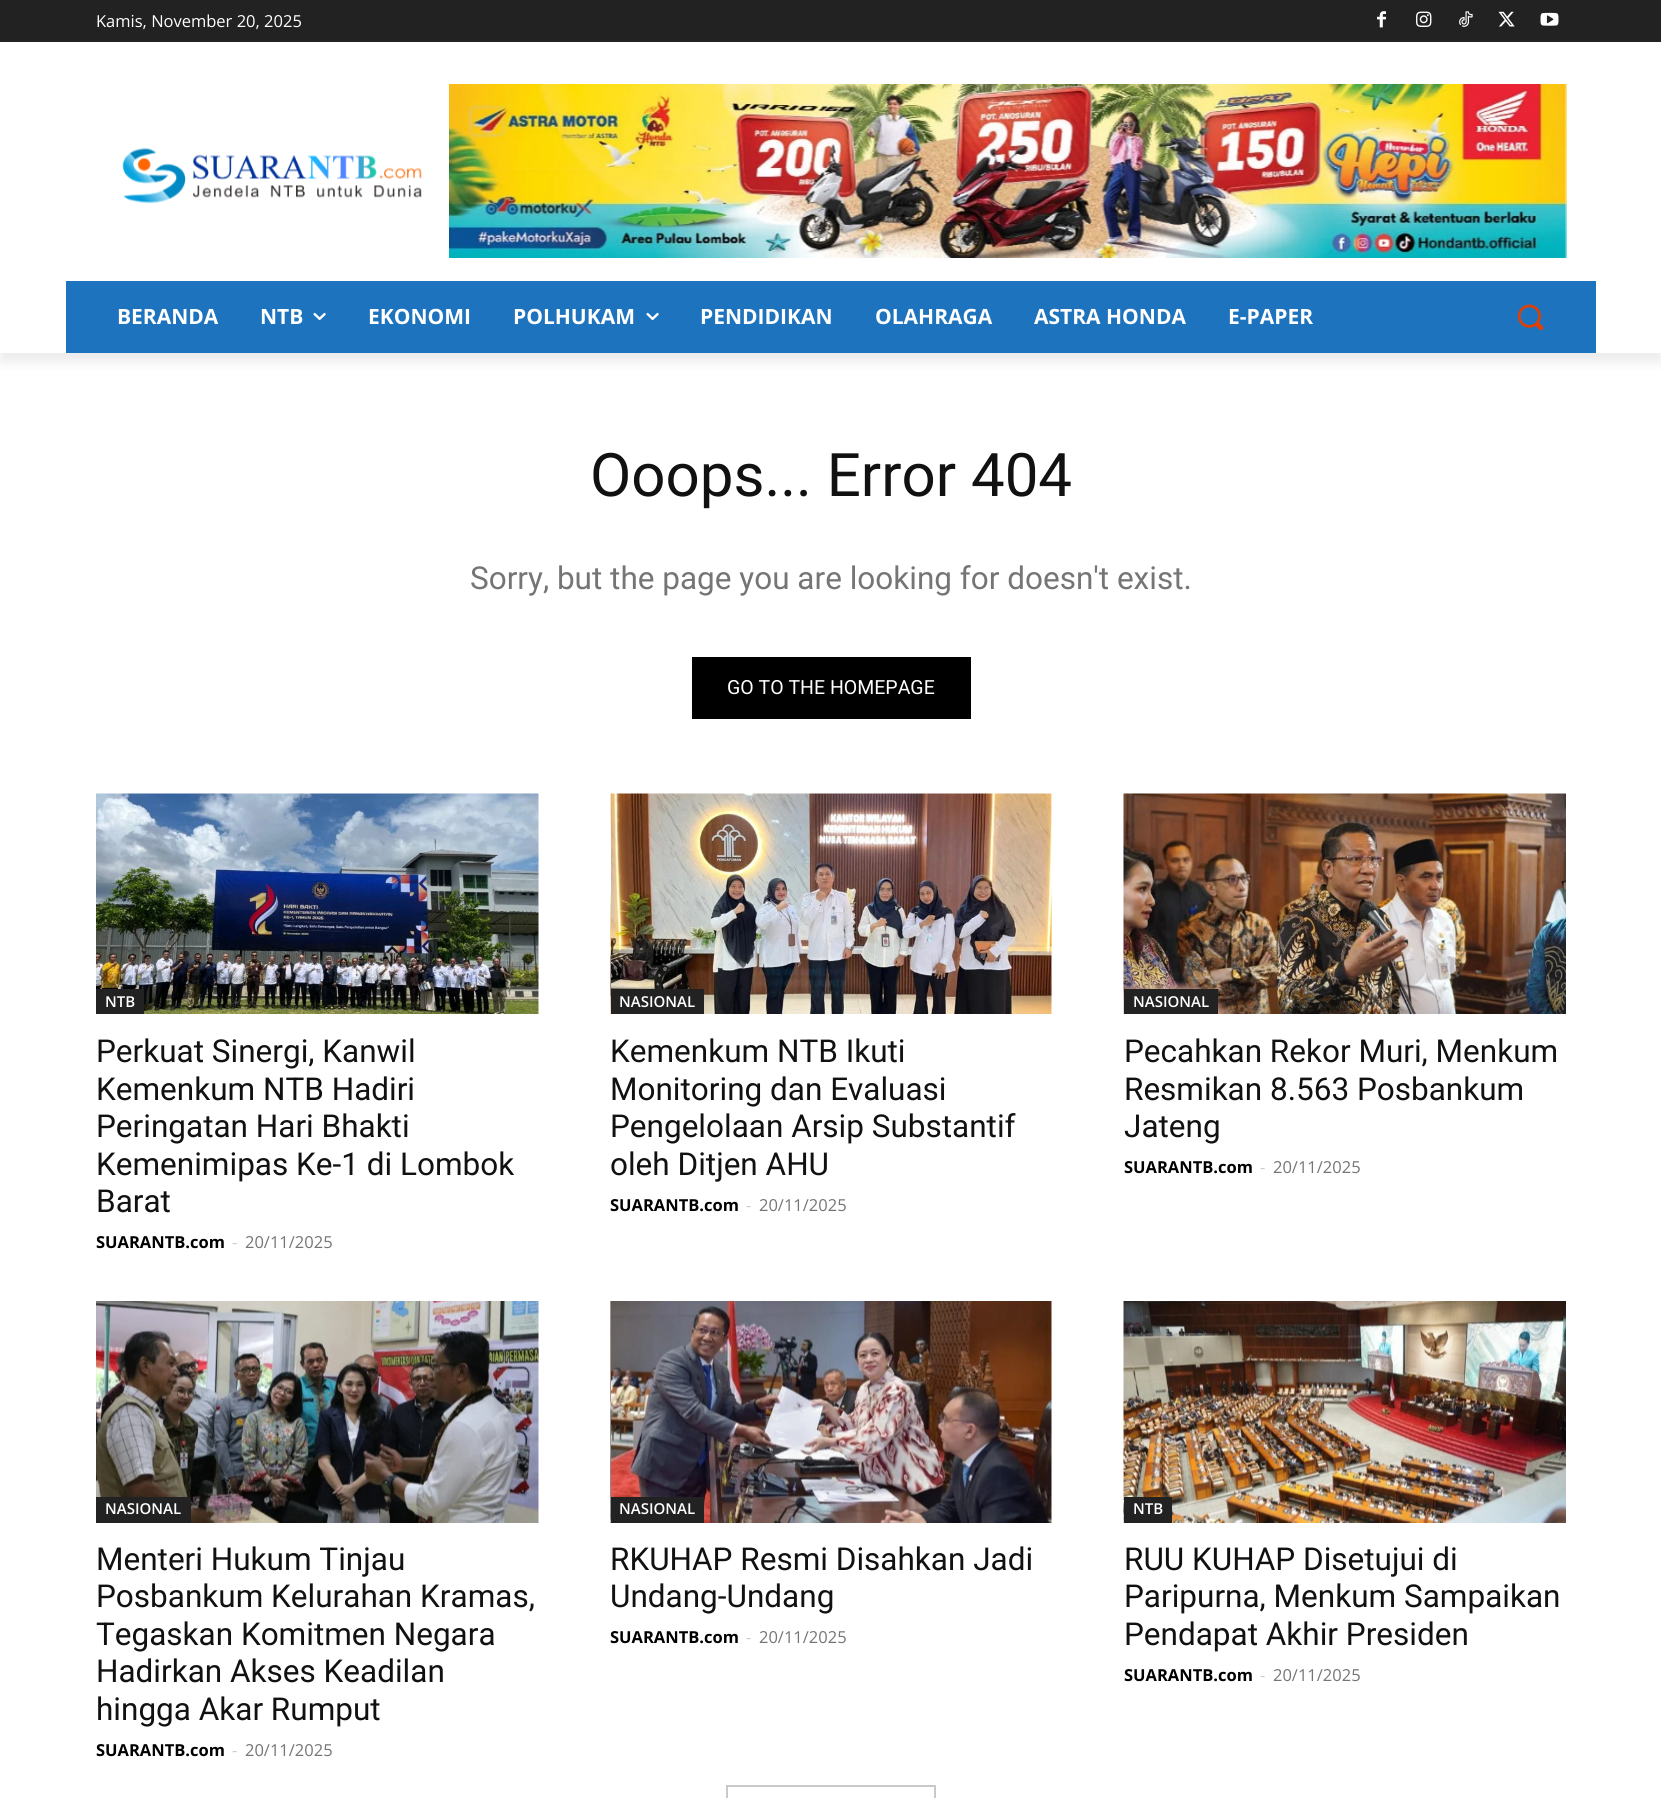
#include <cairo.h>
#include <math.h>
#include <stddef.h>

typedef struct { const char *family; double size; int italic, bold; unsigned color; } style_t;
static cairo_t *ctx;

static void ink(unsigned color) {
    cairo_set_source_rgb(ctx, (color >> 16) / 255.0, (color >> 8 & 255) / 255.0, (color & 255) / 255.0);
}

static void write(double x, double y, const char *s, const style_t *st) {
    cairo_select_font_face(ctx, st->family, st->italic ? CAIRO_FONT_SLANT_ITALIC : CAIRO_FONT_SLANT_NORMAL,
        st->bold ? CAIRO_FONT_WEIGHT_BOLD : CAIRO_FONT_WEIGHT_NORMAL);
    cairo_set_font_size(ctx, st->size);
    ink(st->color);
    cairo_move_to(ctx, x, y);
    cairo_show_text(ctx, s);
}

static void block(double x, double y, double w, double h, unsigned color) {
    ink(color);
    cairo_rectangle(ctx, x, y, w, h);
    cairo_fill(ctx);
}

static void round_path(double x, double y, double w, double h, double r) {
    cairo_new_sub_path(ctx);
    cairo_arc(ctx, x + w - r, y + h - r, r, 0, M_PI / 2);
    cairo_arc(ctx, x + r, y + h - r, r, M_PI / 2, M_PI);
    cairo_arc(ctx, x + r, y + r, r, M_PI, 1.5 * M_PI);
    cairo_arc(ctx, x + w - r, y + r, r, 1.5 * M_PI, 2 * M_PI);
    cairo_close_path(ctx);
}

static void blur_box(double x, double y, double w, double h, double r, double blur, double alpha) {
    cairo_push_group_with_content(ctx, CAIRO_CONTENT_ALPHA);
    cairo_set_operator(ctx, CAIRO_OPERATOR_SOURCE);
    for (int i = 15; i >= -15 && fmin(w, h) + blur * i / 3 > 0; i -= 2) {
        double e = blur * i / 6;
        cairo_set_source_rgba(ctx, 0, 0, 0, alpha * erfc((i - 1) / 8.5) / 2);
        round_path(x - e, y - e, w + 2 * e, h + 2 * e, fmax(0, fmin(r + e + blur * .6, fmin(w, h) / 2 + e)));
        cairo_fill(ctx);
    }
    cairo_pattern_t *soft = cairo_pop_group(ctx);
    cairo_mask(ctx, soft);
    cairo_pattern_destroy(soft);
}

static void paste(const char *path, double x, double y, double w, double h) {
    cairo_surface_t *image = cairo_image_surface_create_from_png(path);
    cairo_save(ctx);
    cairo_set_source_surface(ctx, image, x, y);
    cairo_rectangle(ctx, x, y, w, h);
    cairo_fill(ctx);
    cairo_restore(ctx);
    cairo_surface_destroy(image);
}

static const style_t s1 = {"Open Sans", 16.5, 0, 0, 0xffffff};
static const style_t s2 = {"Open Sans", 21, 0, 1, 0xffffff};
static const style_t s3 = {"Roboto", 60, 0, 0, 0x111111};
static const style_t s4 = {"Roboto", 31.5, 0, 0, 0x757575};
static const style_t s5 = {"Roboto", 19.5, 0, 0, 0xffffff};
static const style_t s6 = {"Open Sans SemiBold", 15, 0, 0, 0xffffff};
static const style_t s7 = {"Roboto", 31.5, 0, 0, 0x111111};
static const style_t s8 = {"Open Sans", 16.5, 0, 1, 0x000000};
static const style_t s9 = {"Open Sans", 16.5, 0, 0, 0xcccccc};
static const style_t s10 = {"Open Sans", 16.5, 0, 0, 0x757575};

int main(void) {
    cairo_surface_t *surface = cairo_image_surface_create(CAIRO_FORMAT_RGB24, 1661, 1798);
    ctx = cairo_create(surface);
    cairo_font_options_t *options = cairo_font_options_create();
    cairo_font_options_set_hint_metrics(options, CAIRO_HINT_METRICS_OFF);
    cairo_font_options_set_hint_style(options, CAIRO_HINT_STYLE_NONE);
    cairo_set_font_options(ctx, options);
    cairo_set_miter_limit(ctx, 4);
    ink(0xffffff);
    cairo_paint(ctx);
    block(0, 0, 1661, 42, 0x222222);
    paste("pic1.png", 1377, 11, 9, 17);
    paste("pic2.png", 1416, 11, 16, 16);
    paste("pic3.png", 1459, 11, 14, 16);
    paste("pic4.png", 1498, 11, 17, 16);
    paste("pic5.png", 1540, 12, 19, 14);
    paste("pic6.png", 122, 147, 300, 57);
    paste("pic7.png", 449, 84, 1118, 174);
    block(66, 281, 1530, 72, 0x1e73be);
    cairo_save(ctx);
    cairo_set_fill_rule(ctx, CAIRO_FILL_RULE_EVEN_ODD);
    cairo_new_path(ctx);
    cairo_move_to(ctx, 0, 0);
    cairo_line_to(ctx, 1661, 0);
    cairo_line_to(ctx, 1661, 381);
    cairo_line_to(ctx, 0, 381);
    cairo_close_path(ctx);
    cairo_move_to(ctx, 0, 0);
    cairo_line_to(ctx, 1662, 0);
    cairo_line_to(ctx, 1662, 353);
    cairo_line_to(ctx, 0, 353);
    cairo_close_path(ctx);
    cairo_clip(ctx);
    ink(0x000000);
    blur_box(0, 9, 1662, 353, 0, 6, 0.08);
    cairo_restore(ctx);
    write(96, 27, "Kamis, November 20, 2025", &s1);
    write(117, 324, "BERANDA", &s2);
    write(260, 324, "NTB", &s2);
    paste("pic8.png", 313, 312, 13, 8);
    write(368, 324, "EKONOMI", &s2);
    write(513, 324, "POLHUKAM", &s2);
    paste("pic8.png", 646, 312, 13, 8);
    write(700, 324, "PENDIDIKAN", &s2);
    write(875, 324, "OLAHRAGA", &s2);
    write(1034, 324, "ASTRA HONDA", &s2);
    write(1228, 324, "E-PAPER", &s2);
    paste("pic9.png", 1517, 304, 27, 27);
    write(590, 496, "Ooops... Error 404", &s3);
    write(470, 589, "Sorry, but the page you are looking for doesn't exist.", &s4);
    block(692, 657, 279, 62, 0x000000);
    write(727, 694, "GO TO THE HOMEPAGE", &s5);
    paste("pic10.png", 96, 793, 443, 221);
    block(96, 989, 48, 25, 0x222222);
    write(105, 1007, "NTB", &s6);
    write(96, 1062, "Perkuat Sinergi, Kanwil", &s7);
    write(96, 1100, "Kemenkum NTB Hadiri", &s7);
    write(96, 1137, "Peringatan Hari Bhakti", &s7);
    write(96, 1175, "Kemenimipas Ke-1 di Lombok", &s7);
    write(96, 1212, "Barat", &s7);
    write(96, 1248, "SUARANTB.com", &s8);
    write(232, 1248, "-", &s9);
    write(245, 1248, "20/11/2025", &s10);
    paste("pic11.png", 610, 793, 442, 221);
    block(611, 989, 93, 25, 0x222222);
    write(619, 1007, "NASIONAL", &s6);
    write(610, 1062, "Kemenkum NTB Ikuti", &s7);
    write(610, 1100, "Monitoring dan Evaluasi", &s7);
    write(610, 1137, "Pengelolaan Arsip Substantif", &s7);
    write(610, 1175, "oleh Ditjen AHU", &s7);
    write(610, 1211, "SUARANTB.com", &s8);
    write(746, 1211, "-", &s9);
    write(759, 1211, "20/11/2025", &s10);
    paste("pic12.png", 1123, 793, 443, 221);
    block(1124, 989, 94, 25, 0x222222);
    write(1133, 1007, "NASIONAL", &s6);
    write(1124, 1062, "Pecahkan Rekor Muri, Menkum", &s7);
    write(1124, 1100, "Resmikan 8.563 Posbankum", &s7);
    write(1124, 1137, "Jateng", &s7);
    write(1124, 1173, "SUARANTB.com", &s8);
    write(1260, 1173, "-", &s9);
    write(1273, 1173, "20/11/2025", &s10);
    paste("pic13.png", 96, 1301, 443, 222);
    block(96, 1497, 95, 26, 0x222222);
    write(105, 1514, "NASIONAL", &s6);
    write(96, 1570, "Menteri Hukum Tinjau", &s7);
    write(96, 1607, "Posbankum Kelurahan Kramas,", &s7);
    write(96, 1645, "Tegaskan Komitmen Negara", &s7);
    write(96, 1682, "Hadirkan Akses Keadilan", &s7);
    write(96, 1720, "hingga Akar Rumput", &s7);
    write(96, 1756, "SUARANTB.com", &s8);
    write(232, 1756, "-", &s9);
    write(245, 1756, "20/11/2025", &s10);
    paste("pic14.png", 610, 1301, 442, 222);
    block(611, 1497, 93, 26, 0x222222);
    write(619, 1514, "NASIONAL", &s6);
    write(610, 1570, "RKUHAP Resmi Disahkan Jadi", &s7);
    write(610, 1607, "Undang-Undang", &s7);
    write(610, 1643, "SUARANTB.com", &s8);
    write(746, 1643, "-", &s9);
    write(759, 1643, "20/11/2025", &s10);
    paste("pic15.png", 1123, 1301, 443, 222);
    block(1124, 1497, 48, 26, 0x222222);
    write(1133, 1514, "NTB", &s6);
    write(1124, 1570, "RUU KUHAP Disetujui di", &s7);
    write(1124, 1607, "Paripurna, Menkum Sampaikan", &s7);
    write(1124, 1645, "Pendapat Akhir Presiden", &s7);
    write(1124, 1681, "SUARANTB.com", &s8);
    write(1260, 1681, "-", &s9);
    write(1273, 1681, "20/11/2025", &s10);
    cairo_rectangle(ctx, 727, 1786, 208, 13);
    ink(0xc9c9c9);
    cairo_stroke(ctx);
    cairo_surface_write_to_png(surface, "screenshot.png");
    cairo_font_options_destroy(options);
    cairo_destroy(ctx);
    cairo_surface_destroy(surface);
    return 0;
}
